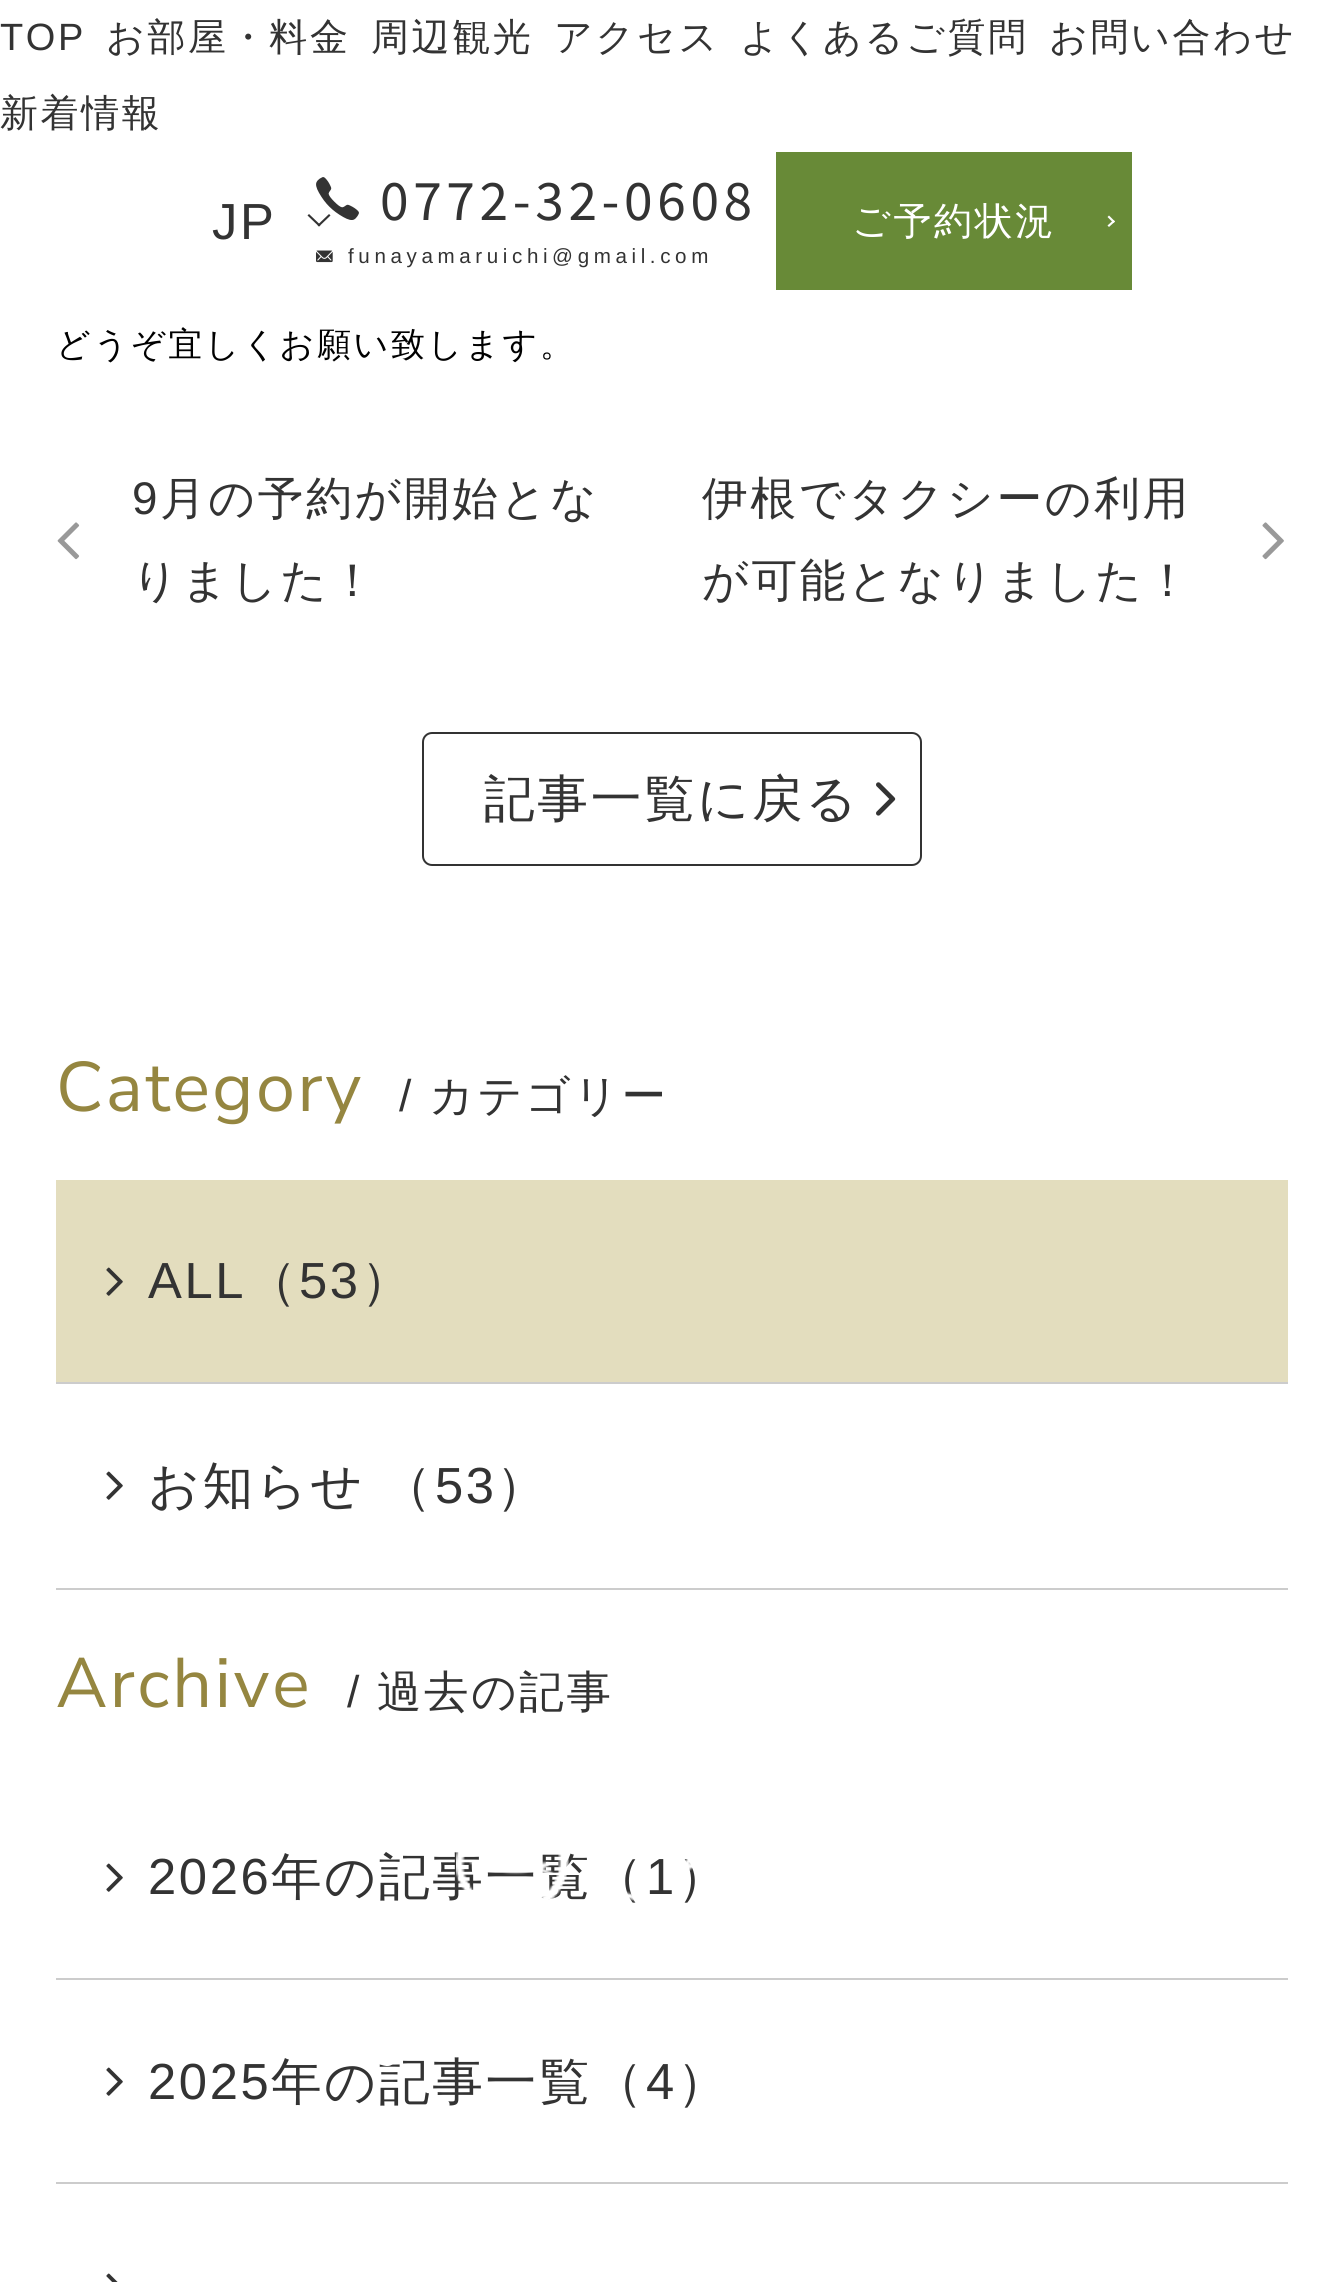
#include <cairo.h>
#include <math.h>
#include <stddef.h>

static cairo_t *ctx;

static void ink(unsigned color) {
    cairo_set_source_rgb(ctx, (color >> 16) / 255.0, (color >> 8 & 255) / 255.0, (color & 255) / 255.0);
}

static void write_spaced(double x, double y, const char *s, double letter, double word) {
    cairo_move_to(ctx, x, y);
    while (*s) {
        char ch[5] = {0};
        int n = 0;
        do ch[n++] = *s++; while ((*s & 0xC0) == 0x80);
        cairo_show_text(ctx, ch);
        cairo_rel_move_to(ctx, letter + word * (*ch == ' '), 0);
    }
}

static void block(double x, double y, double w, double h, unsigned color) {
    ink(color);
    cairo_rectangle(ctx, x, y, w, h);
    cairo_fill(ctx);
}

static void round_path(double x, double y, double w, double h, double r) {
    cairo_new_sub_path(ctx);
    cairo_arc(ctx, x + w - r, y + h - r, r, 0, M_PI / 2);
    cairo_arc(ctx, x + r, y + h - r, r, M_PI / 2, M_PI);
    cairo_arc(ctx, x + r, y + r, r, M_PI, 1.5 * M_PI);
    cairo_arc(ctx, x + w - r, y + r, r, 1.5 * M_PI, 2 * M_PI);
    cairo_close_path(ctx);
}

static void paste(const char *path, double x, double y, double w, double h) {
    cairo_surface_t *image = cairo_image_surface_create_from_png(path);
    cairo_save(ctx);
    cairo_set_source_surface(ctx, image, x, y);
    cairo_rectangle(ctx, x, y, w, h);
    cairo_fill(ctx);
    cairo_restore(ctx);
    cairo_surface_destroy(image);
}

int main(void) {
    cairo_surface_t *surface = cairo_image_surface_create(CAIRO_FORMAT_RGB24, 1344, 2282);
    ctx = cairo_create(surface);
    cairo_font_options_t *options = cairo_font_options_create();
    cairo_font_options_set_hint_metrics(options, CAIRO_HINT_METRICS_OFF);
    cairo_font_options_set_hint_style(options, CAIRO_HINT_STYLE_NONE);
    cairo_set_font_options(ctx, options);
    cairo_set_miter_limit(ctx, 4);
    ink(0xffffff);
    cairo_paint(ctx);
    cairo_select_font_face(ctx, "Liberation Sans", CAIRO_FONT_SLANT_NORMAL, CAIRO_FONT_WEIGHT_NORMAL);
    cairo_set_font_size(ctx, 38);
    ink(0x333333);
    write_spaced(0, 50, "TOP", 2.6, 0);
    cairo_select_font_face(ctx, "WenQuanYi Zen Hei Medium", CAIRO_FONT_SLANT_NORMAL, CAIRO_FONT_WEIGHT_NORMAL);
    write_spaced(106, 50, "お部屋・料金", 2.6, 0);
    write_spaced(371, 50, "周辺観光", 2.6, 0);
    write_spaced(554, 50, "アクセス", 2.6, 0);
    write_spaced(740, 50, "よくあるご質問", 2.6, 0);
    write_spaced(1049, 50, "お問い合わせ", 2.6, 0);
    write_spaced(0, 126, "新着情報", 2.6, 0);
    cairo_select_font_face(ctx, "Liberation Sans", CAIRO_FONT_SLANT_NORMAL, CAIRO_FONT_WEIGHT_NORMAL);
    cairo_set_font_size(ctx, 50.75);
    write_spaced(212, 239, "JP", 2.6, 0);
    paste("pic1.png", 316, 177, 43, 43);
    cairo_new_path(ctx);
    cairo_move_to(ctx, 329, 214);
    cairo_line_to(ctx, 330.5, 215.5);
    cairo_line_to(ctx, 319, 226.5);
    cairo_line_to(ctx, 317.5, 225);
    cairo_close_path(ctx);
    cairo_fill(ctx);
    cairo_new_path(ctx);
    cairo_move_to(ctx, 309, 214);
    cairo_line_to(ctx, 320.5, 225);
    cairo_line_to(ctx, 319, 226.5);
    cairo_line_to(ctx, 307.5, 215.5);
    cairo_close_path(ctx);
    cairo_fill(ctx);
    cairo_select_font_face(ctx, "Source Sans Pro", CAIRO_FONT_SLANT_NORMAL, CAIRO_FONT_WEIGHT_NORMAL);
    cairo_set_font_size(ctx, 57.5);
    write_spaced(380, 220, "0772-32-0608", 4.6, 0);
    paste("pic2.png", 316, 250, 17, 13);
    cairo_select_font_face(ctx, "Liberation Sans", CAIRO_FONT_SLANT_NORMAL, CAIRO_FONT_WEIGHT_NORMAL);
    cairo_set_font_size(ctx, 20.6);
    write_spaced(348, 263, "funayamaruichi@gmail.com", 4.6, 0);
    block(776, 152, 356, 138, 0x688a37);
    cairo_select_font_face(ctx, "WenQuanYi Zen Hei Medium", CAIRO_FONT_SLANT_NORMAL, CAIRO_FONT_WEIGHT_NORMAL);
    cairo_set_font_size(ctx, 38);
    ink(0xffffff);
    write_spaced(852, 234, "ご予約状況", 2.6, 0);
    cairo_new_path(ctx);
    cairo_move_to(ctx, 1107.5, 217);
    cairo_line_to(ctx, 1109, 215.5);
    cairo_line_to(ctx, 1115, 221.5);
    cairo_line_to(ctx, 1113.5, 223);
    cairo_close_path(ctx);
    cairo_fill(ctx);
    cairo_new_path(ctx);
    cairo_move_to(ctx, 1107.5, 225.5);
    cairo_line_to(ctx, 1113.5, 220);
    cairo_line_to(ctx, 1115, 221.5);
    cairo_line_to(ctx, 1109, 227);
    cairo_close_path(ctx);
    cairo_fill(ctx);
    cairo_set_font_size(ctx, 34);
    ink(0x000000);
    write_spaced(56, 356, "どうぞ宜しくお願い致します。", 2.6, 0);
    paste("pic3.png", 57, 522, 23, 38);
    cairo_select_font_face(ctx, "Liberation Sans", CAIRO_FONT_SLANT_NORMAL, CAIRO_FONT_WEIGHT_NORMAL);
    cairo_set_font_size(ctx, 45.75);
    ink(0x333333);
    write_spaced(132, 514, "9", 2.6, 0);
    cairo_select_font_face(ctx, "WenQuanYi Zen Hei Medium", CAIRO_FONT_SLANT_NORMAL, CAIRO_FONT_WEIGHT_NORMAL);
    write_spaced(160, 514, "月の予約が開始とな", 2.6, 0);
    write_spaced(132, 596, "りました！", 2.6, 0);
    write_spaced(702, 514, "伊根でタクシーの利用", 2.6, 0);
    write_spaced(702, 596, "が可能となりました！", 2.6, 0);
    paste("pic4.png", 1262, 522, 22, 38);
    round_path(423, 733, 498, 132, 9);
    cairo_stroke(ctx);
    cairo_set_font_size(ctx, 50.75);
    write_spaced(484, 816, "記事一覧に戻る", 2.6, 0);
    paste("pic5.png", 876, 782, 20, 34);
    cairo_select_font_face(ctx, "Nunito Sans ExtraLight", CAIRO_FONT_SLANT_NORMAL, CAIRO_FONT_WEIGHT_NORMAL);
    cairo_set_font_size(ctx, 70);
    ink(0x958640);
    write_spaced(56, 1111, "Category", 2.6, 0);
    cairo_select_font_face(ctx, "Liberation Sans", CAIRO_FONT_SLANT_NORMAL, CAIRO_FONT_WEIGHT_NORMAL);
    cairo_set_font_size(ctx, 44.5);
    ink(0x333333);
    write_spaced(399, 1111, "/", 2.6, 0);
    cairo_select_font_face(ctx, "WenQuanYi Zen Hei Medium", CAIRO_FONT_SLANT_NORMAL, CAIRO_FONT_WEIGHT_NORMAL);
    write_spaced(429, 1111, "カテゴリー", 2.6, 0);
    block(56, 1180, 1232, 202, 0xe3ddbe);
    block(56, 1382, 1232, 2, 0xcccccc);
    paste("pic6.png", 106, 1267, 17, 29);
    cairo_select_font_face(ctx, "Liberation Sans", CAIRO_FONT_SLANT_NORMAL, CAIRO_FONT_WEIGHT_NORMAL);
    cairo_set_font_size(ctx, 50.75);
    ink(0x333333);
    write_spaced(148, 1298, "ALL", 2.6, 0);
    cairo_select_font_face(ctx, "WenQuanYi Zen Hei Medium", CAIRO_FONT_SLANT_NORMAL, CAIRO_FONT_WEIGHT_NORMAL);
    write_spaced(246, 1298, "（", 2.6, 0);
    cairo_select_font_face(ctx, "Liberation Sans", CAIRO_FONT_SLANT_NORMAL, CAIRO_FONT_WEIGHT_NORMAL);
    write_spaced(299, 1298, "53", 2.6, 0);
    cairo_select_font_face(ctx, "WenQuanYi Zen Hei Medium", CAIRO_FONT_SLANT_NORMAL, CAIRO_FONT_WEIGHT_NORMAL);
    write_spaced(361, 1298, "）", 2.6, 0);
    block(56, 1588, 1232, 2, 0xcccccc);
    paste("pic7.png", 106, 1471, 17, 29);
    ink(0x333333);
    write_spaced(148, 1503, "お知らせ", 2.6, 0);
    write_spaced(381, 1503, "（", 2.6, 0);
    cairo_select_font_face(ctx, "Liberation Sans", CAIRO_FONT_SLANT_NORMAL, CAIRO_FONT_WEIGHT_NORMAL);
    write_spaced(435, 1503, "53", 2.6, 0);
    cairo_select_font_face(ctx, "WenQuanYi Zen Hei Medium", CAIRO_FONT_SLANT_NORMAL, CAIRO_FONT_WEIGHT_NORMAL);
    write_spaced(496, 1503, "）", 2.6, 0);
    cairo_select_font_face(ctx, "Nunito Sans ExtraLight", CAIRO_FONT_SLANT_NORMAL, CAIRO_FONT_WEIGHT_NORMAL);
    cairo_set_font_size(ctx, 70);
    ink(0x958640);
    write_spaced(56, 1707, "Archive", 2.6, 0);
    cairo_select_font_face(ctx, "Liberation Sans", CAIRO_FONT_SLANT_NORMAL, CAIRO_FONT_WEIGHT_NORMAL);
    cairo_set_font_size(ctx, 44.5);
    ink(0x333333);
    write_spaced(347, 1707, "/", 2.6, 0);
    cairo_select_font_face(ctx, "WenQuanYi Zen Hei Medium", CAIRO_FONT_SLANT_NORMAL, CAIRO_FONT_WEIGHT_NORMAL);
    write_spaced(377, 1707, "過去の記事", 2.6, 0);
    block(56, 1978, 1232, 2, 0xcccccc);
    paste("pic7.png", 106, 1863, 17, 29);
    cairo_select_font_face(ctx, "Liberation Sans", CAIRO_FONT_SLANT_NORMAL, CAIRO_FONT_WEIGHT_NORMAL);
    cairo_set_font_size(ctx, 50.75);
    ink(0x333333);
    write_spaced(148, 1894, "2026", 2.6, 0);
    cairo_select_font_face(ctx, "WenQuanYi Zen Hei Medium", CAIRO_FONT_SLANT_NORMAL, CAIRO_FONT_WEIGHT_NORMAL);
    write_spaced(271, 1894, "年の記事一覧（", 2.6, 0);
    cairo_select_font_face(ctx, "Liberation Sans", CAIRO_FONT_SLANT_NORMAL, CAIRO_FONT_WEIGHT_NORMAL);
    write_spaced(646, 1894, "1", 2.6, 0);
    cairo_select_font_face(ctx, "WenQuanYi Zen Hei Medium", CAIRO_FONT_SLANT_NORMAL, CAIRO_FONT_WEIGHT_NORMAL);
    write_spaced(677, 1894, "）", 2.6, 0);
    block(56, 2182, 1232, 2, 0xcccccc);
    paste("pic7.png", 106, 2067, 17, 29);
    cairo_select_font_face(ctx, "Liberation Sans", CAIRO_FONT_SLANT_NORMAL, CAIRO_FONT_WEIGHT_NORMAL);
    ink(0x333333);
    write_spaced(148, 2099, "2025", 2.6, 0);
    cairo_select_font_face(ctx, "WenQuanYi Zen Hei Medium", CAIRO_FONT_SLANT_NORMAL, CAIRO_FONT_WEIGHT_NORMAL);
    write_spaced(271, 2099, "年の記事一覧（", 2.6, 0);
    cairo_select_font_face(ctx, "Liberation Sans", CAIRO_FONT_SLANT_NORMAL, CAIRO_FONT_WEIGHT_NORMAL);
    write_spaced(646, 2099, "4", 2.6, 0);
    cairo_select_font_face(ctx, "WenQuanYi Zen Hei Medium", CAIRO_FONT_SLANT_NORMAL, CAIRO_FONT_WEIGHT_NORMAL);
    write_spaced(677, 2099, "）", 2.6, 0);
    paste("pic8.png", 106, 2273, 12, 9);
    paste("pic9.png", 456, 1852, 237, 51);
    paste("pic10.png", 379, 2057, 14, 9);
    paste("pic11.png", 248, 2269, 34, 13);
    cairo_surface_write_to_png(surface, "screenshot.png");
    cairo_font_options_destroy(options);
    cairo_destroy(ctx);
    cairo_surface_destroy(surface);
    return 0;
}
